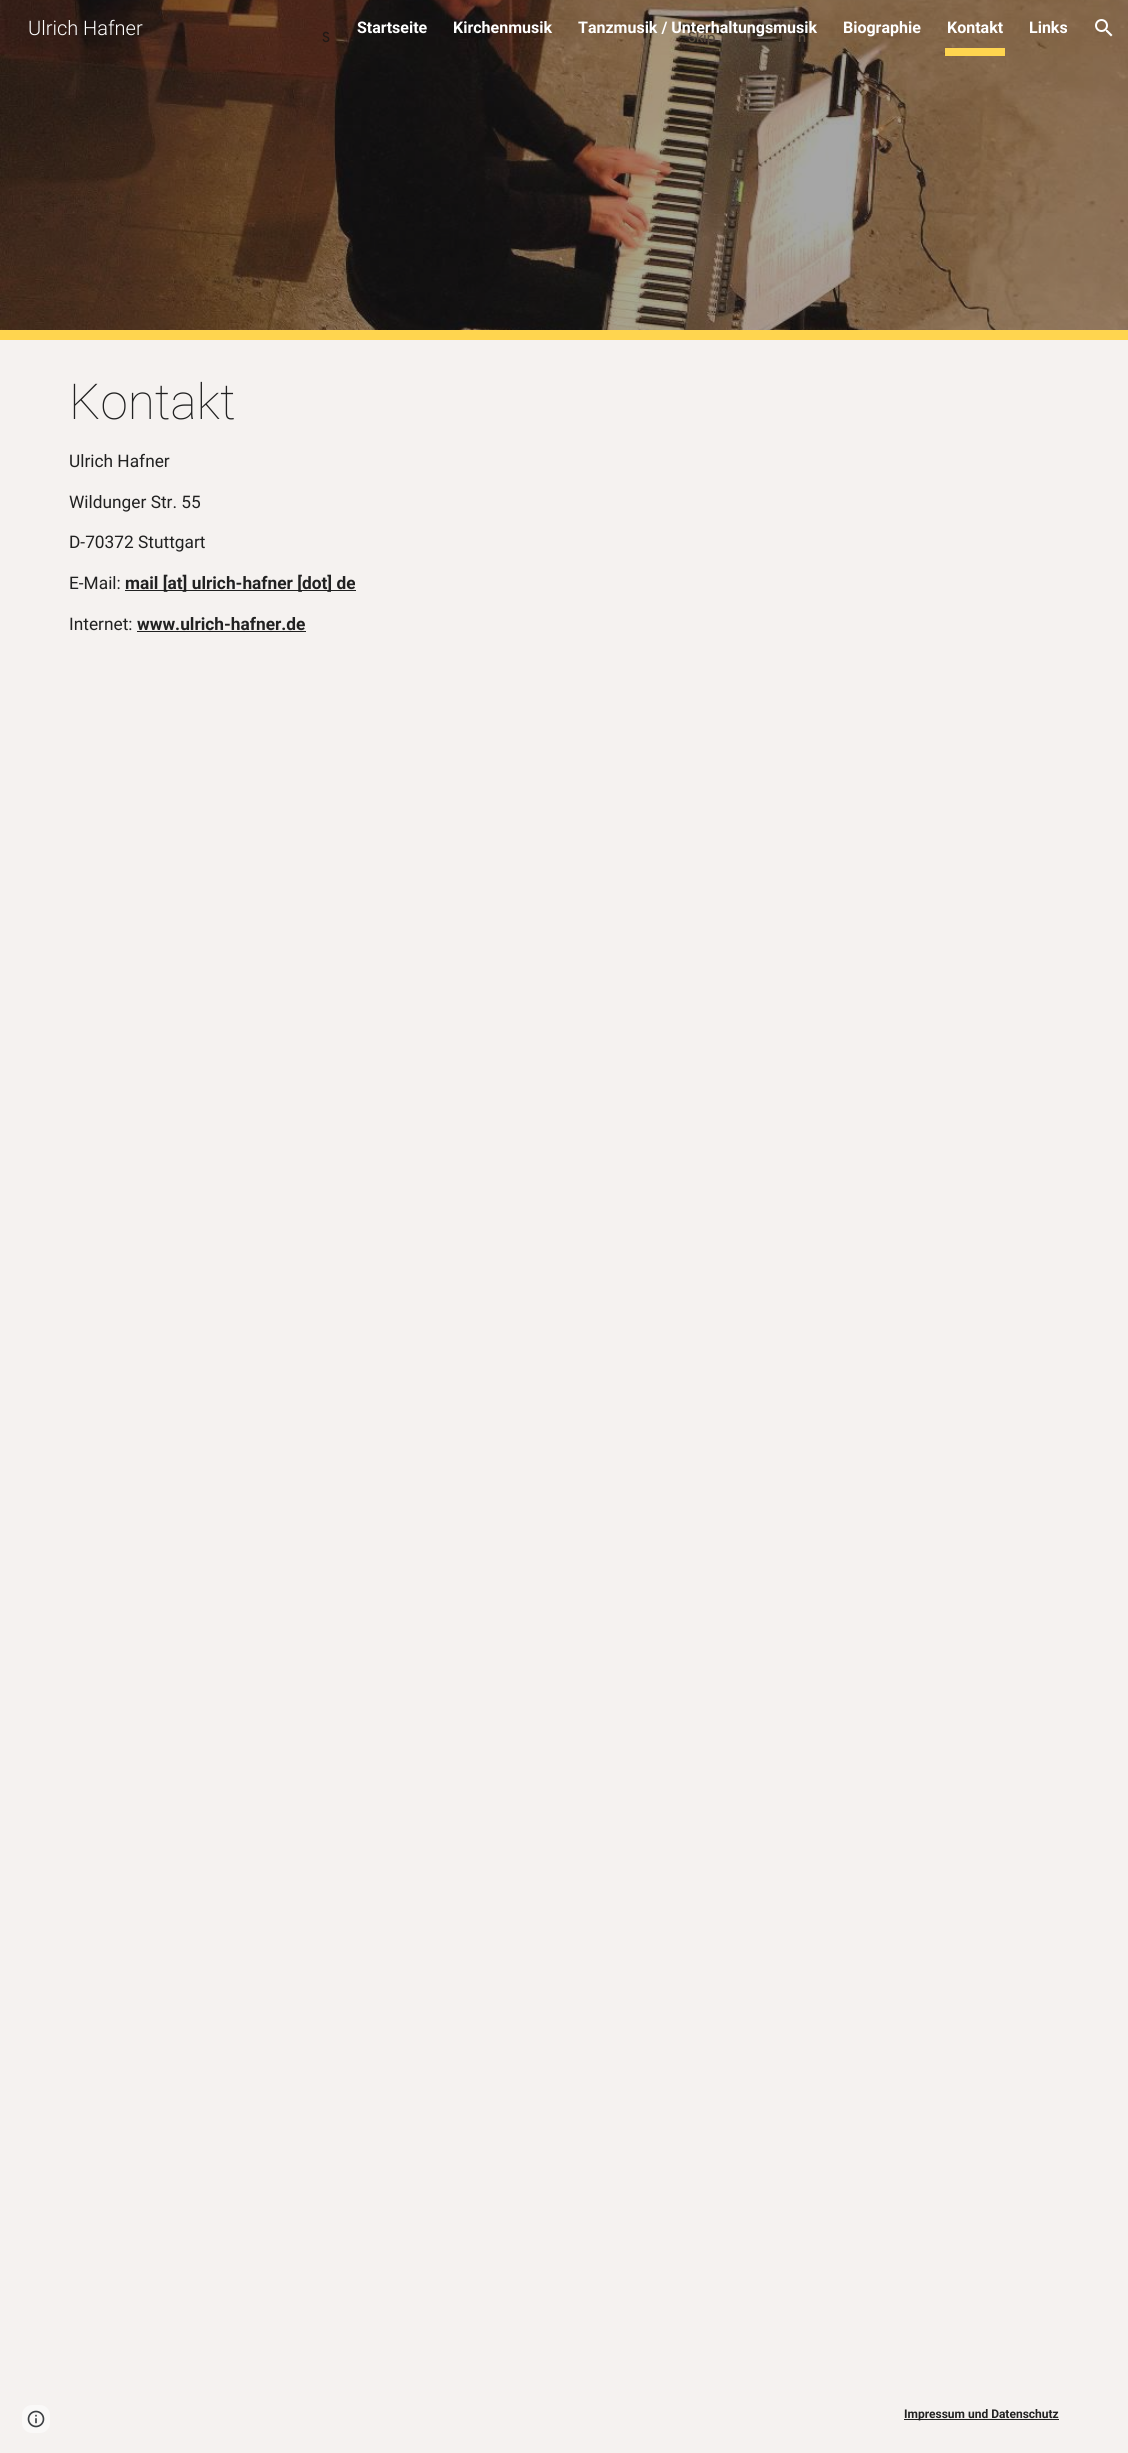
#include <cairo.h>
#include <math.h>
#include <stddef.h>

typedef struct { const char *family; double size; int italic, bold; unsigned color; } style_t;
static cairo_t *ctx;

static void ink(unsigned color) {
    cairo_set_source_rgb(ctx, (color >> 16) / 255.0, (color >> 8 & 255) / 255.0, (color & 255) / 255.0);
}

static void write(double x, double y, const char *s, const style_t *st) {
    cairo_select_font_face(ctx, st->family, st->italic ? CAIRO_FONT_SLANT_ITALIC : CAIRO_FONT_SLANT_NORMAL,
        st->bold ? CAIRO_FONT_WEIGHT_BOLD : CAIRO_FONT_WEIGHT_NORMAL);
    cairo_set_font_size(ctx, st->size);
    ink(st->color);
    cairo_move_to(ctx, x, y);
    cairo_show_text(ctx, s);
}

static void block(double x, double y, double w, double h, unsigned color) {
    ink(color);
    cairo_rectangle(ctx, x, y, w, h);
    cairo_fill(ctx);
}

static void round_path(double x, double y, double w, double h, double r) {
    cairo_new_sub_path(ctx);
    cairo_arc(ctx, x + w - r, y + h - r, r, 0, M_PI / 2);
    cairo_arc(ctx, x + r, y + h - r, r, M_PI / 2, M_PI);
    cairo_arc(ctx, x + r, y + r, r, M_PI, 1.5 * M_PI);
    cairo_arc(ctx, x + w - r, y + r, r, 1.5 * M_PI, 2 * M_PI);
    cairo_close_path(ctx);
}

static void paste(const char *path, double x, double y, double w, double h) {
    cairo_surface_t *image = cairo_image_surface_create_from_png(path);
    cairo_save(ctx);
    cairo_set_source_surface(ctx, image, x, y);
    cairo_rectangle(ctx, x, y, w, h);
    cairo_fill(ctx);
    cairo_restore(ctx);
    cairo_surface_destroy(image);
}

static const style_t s1 = {"Roboto Light", 20, 0, 0, 0xffffff};
static const style_t s2 = {"Roboto", 16, 0, 1, 0xffffff};
static const style_t s3 = {"Roboto Thin", 49.5, 0, 0, 0x212121};
static const style_t s4 = {"Roboto", 17.3, 0, 0, 0x212121};
static const style_t s5 = {"Roboto", 17.3, 0, 1, 0x212121};
static const style_t s6 = {"Roboto", 12, 0, 1, 0x212121};
static const style_t s7 = {"Google Sans Medium", 14, 0, 0, 0x221915};
static const style_t s8 = {"Google Sans Medium", 14, 0, 0, 0x55483b};

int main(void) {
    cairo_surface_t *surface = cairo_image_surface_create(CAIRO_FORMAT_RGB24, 1128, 2453);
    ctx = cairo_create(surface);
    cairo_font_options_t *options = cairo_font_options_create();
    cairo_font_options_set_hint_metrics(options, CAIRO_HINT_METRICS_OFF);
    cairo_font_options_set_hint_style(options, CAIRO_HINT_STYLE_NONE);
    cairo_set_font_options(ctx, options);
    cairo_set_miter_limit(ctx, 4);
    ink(0xf5f2f0);
    cairo_paint(ctx);
    paste("pic2.png", 0, 0, 1128, 330);
    write(28, 35, "Ulrich Hafner", &s1);
    write(357, 33, "Startseite", &s2);
    write(453, 33, "Kirchenmusik", &s2);
    write(578, 33, "Tanzmusik / Unterhaltungsmusik", &s2);
    write(843, 33, "Biographie", &s2);
    block(945, 48, 60, 8, 0xffd54f);
    write(947, 33, "Kontakt", &s2);
    write(1029, 33, "Links", &s2);
    paste("pic1.png", 1095, 19, 18, 18);
    block(0, 330, 1128, 10, 0xffd54f);
    write(69, 419, "Kontakt", &s3);
    write(69, 467, "Ulrich Hafner", &s4);
    write(69, 508, "Wildunger Str. 55", &s4);
    write(69, 548, "D-70372 Stuttgart", &s4);
    write(69, 589, "E-Mail:", &s4);
    block(125, 590, 231, 1, 0x212121);
    write(125, 589, "mail [at] ulrich-hafner [dot] de", &s5);
    write(69, 630, "Internet:", &s4);
    write(137, 630, "www.ulrich-hafner.de", &s5);
    block(137, 631, 169, 1, 0x212121);
    ink(0xfaf9f8);
    round_path(22, 2405, 28, 28, 10);
    cairo_fill(ctx);
    paste("pic3.png", 27, 2410, 18, 18);
    block(904, 2419, 155, 1, 0x212121);
    write(904, 2418, "Impressum und Datenschutz", &s6);
    write(322, 42, "S", &s7);
    write(688, 42, "Skip", &s8);
    write(798, 42, "n", &s8);
    cairo_surface_write_to_png(surface, "screenshot.png");
    cairo_font_options_destroy(options);
    cairo_destroy(ctx);
    cairo_surface_destroy(surface);
    return 0;
}
